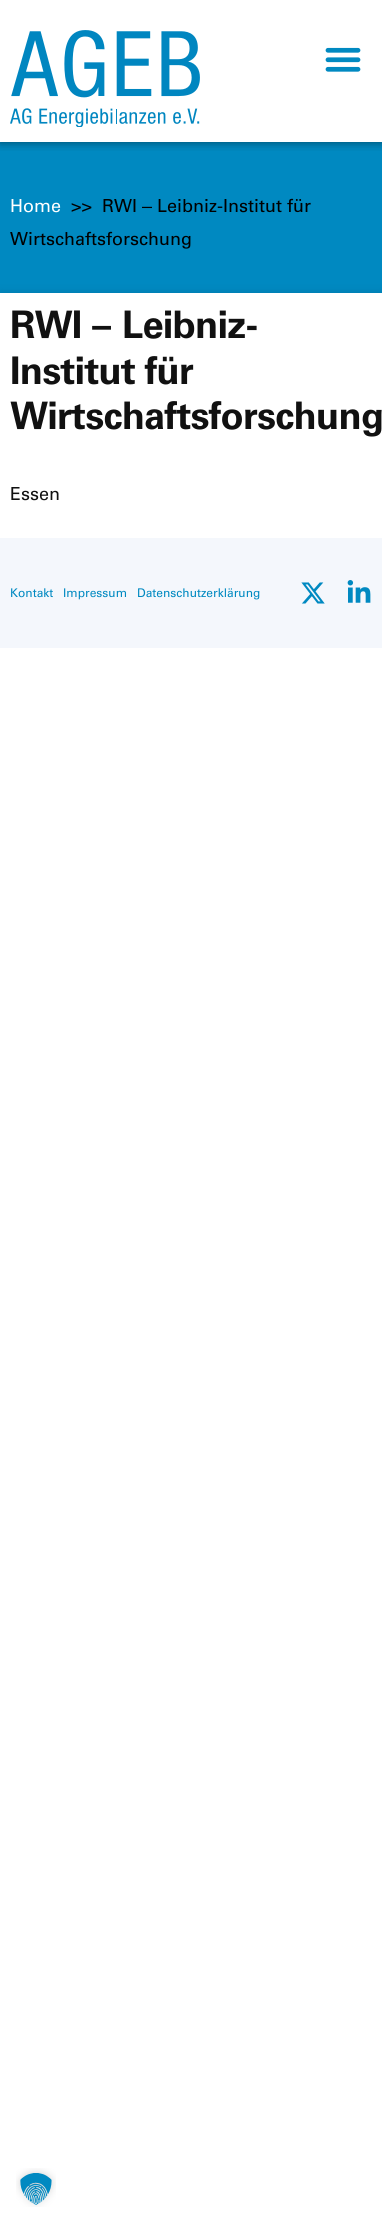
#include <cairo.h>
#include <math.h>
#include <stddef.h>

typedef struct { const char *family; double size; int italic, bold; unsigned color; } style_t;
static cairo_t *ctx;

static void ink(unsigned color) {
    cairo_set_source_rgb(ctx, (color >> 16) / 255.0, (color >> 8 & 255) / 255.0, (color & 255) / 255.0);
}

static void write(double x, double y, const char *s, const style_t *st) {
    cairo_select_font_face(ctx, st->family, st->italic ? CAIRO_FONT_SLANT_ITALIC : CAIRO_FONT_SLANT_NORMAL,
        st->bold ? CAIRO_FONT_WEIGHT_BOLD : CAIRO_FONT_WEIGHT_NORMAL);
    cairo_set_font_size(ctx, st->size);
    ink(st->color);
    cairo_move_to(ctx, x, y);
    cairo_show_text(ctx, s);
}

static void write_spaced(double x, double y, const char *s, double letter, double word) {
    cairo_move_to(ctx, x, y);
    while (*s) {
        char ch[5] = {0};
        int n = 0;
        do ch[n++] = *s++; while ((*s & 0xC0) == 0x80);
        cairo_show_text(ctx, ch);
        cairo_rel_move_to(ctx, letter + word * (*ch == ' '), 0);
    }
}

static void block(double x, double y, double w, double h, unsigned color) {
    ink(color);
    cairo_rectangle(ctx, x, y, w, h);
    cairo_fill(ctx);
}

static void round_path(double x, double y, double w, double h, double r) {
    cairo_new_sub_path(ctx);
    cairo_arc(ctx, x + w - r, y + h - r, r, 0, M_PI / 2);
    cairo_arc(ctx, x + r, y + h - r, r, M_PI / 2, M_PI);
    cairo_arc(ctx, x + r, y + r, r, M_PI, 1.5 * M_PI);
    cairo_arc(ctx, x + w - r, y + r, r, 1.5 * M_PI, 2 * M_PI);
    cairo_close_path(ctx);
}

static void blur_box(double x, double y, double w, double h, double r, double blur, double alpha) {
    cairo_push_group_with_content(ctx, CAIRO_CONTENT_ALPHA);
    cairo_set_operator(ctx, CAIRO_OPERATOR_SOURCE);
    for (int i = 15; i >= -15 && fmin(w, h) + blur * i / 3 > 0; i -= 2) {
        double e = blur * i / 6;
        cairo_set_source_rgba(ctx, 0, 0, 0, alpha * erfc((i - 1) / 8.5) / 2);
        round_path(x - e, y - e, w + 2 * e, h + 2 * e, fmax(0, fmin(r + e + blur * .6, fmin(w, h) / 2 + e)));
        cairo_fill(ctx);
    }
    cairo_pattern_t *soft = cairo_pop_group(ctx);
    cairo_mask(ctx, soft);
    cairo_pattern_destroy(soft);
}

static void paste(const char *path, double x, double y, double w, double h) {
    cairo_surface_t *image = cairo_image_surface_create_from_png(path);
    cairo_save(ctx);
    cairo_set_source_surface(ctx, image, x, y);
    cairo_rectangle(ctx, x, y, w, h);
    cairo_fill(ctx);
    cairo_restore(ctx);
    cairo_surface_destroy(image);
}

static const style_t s1 = {"Univers", 18, 0, 0, 0xffffff};
static const style_t s2 = {"Univers", 18, 0, 0, 0x000000};
static const style_t s3 = {"Liberation Sans", 18, 0, 0, 0x000000};
static const style_t s4 = {"Univers", 18, 0, 0, 0x111111};
static const style_t s5 = {"Univers", 12, 0, 0, 0x0089c1};

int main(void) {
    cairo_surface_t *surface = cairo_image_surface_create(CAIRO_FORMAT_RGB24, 382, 2225);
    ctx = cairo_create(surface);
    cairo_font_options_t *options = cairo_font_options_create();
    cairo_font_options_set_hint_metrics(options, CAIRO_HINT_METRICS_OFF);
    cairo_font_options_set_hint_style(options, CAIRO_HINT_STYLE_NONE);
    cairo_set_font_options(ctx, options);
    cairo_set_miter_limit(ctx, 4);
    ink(0xffffff);
    cairo_paint(ctx);
    block(0, 142, 382, 151, 0x0089c1);
    cairo_save(ctx);
    cairo_rectangle(ctx, 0, 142, 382, 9);
    cairo_clip(ctx);
    ink(0x000000);
    blur_box(0, 0, 382, 142, 0, 5, 0.5);
    cairo_restore(ctx);
    paste("pic1.png", 10, 30, 190, 97);
    paste("pic2.png", 325, 47, 36, 25);
    write(10, 212, "Home", &s1);
    write(71, 212, ">>", &s2);
    write(102, 212, "RWI", &s2);
    write(142, 212, "–", &s3);
    write(157, 212, "Leibniz-Institut für", &s2);
    write(10, 245, "Wirtschaftsforschung", &s2);
    ink(0x000000);
    blur_box(0, 293, 382, 245, 0, 5, 0.12);
    block(0, 293, 382, 245, 0xffffff);
    cairo_select_font_face(ctx, "Univers", CAIRO_FONT_SLANT_NORMAL, CAIRO_FONT_WEIGHT_BOLD);
    cairo_set_font_size(ctx, 38);
    ink(0x111111);
    write_spaced(10, 338, "RWI", -0.75, 0);
    cairo_select_font_face(ctx, "Liberation Sans", CAIRO_FONT_SLANT_NORMAL, CAIRO_FONT_WEIGHT_BOLD);
    write_spaced(91, 338, "–", -0.75, 0);
    cairo_select_font_face(ctx, "Univers", CAIRO_FONT_SLANT_NORMAL, CAIRO_FONT_WEIGHT_BOLD);
    write_spaced(122, 338, "Leibniz-", -0.75, 0);
    write_spaced(10, 384, "Institut für", -0.75, 0);
    write_spaced(10, 429, "Wirtschaftsforschung", -0.75, 0);
    write(10, 500, "Essen", &s4);
    block(0, 538, 382, 110, 0xf4f7fc);
    write(10, 597, "Kontakt", &s5);
    write(63, 597, "Impressum", &s5);
    write(137, 597, "Datenschutzerklärung", &s5);
    paste("pic3.png", 301, 582, 24, 22);
    paste("pic4.png", 347, 580, 24, 23);
    paste("pic5.png", 16, 2168, 40, 39);
    cairo_surface_write_to_png(surface, "screenshot.png");
    cairo_font_options_destroy(options);
    cairo_destroy(ctx);
    cairo_surface_destroy(surface);
    return 0;
}
